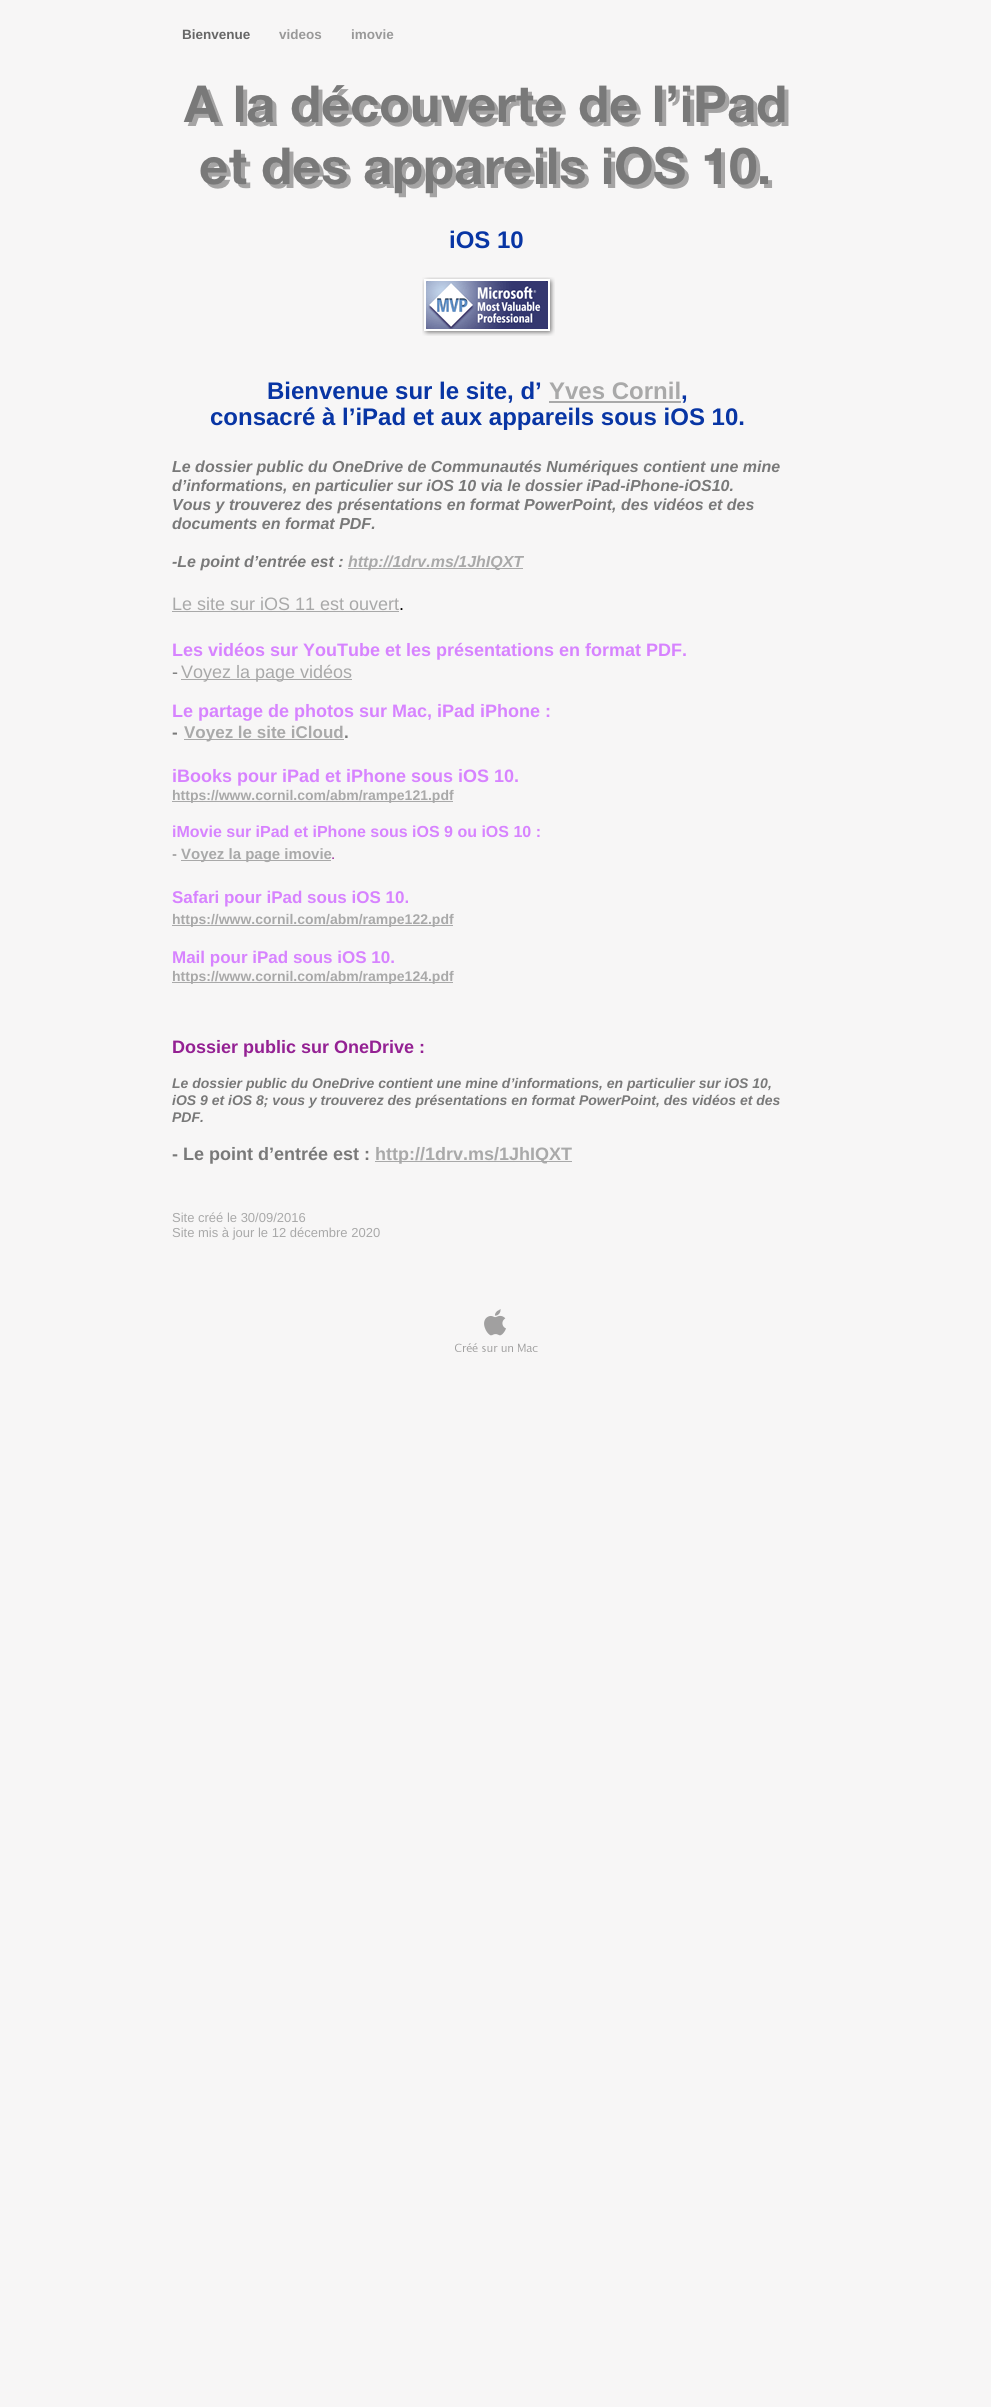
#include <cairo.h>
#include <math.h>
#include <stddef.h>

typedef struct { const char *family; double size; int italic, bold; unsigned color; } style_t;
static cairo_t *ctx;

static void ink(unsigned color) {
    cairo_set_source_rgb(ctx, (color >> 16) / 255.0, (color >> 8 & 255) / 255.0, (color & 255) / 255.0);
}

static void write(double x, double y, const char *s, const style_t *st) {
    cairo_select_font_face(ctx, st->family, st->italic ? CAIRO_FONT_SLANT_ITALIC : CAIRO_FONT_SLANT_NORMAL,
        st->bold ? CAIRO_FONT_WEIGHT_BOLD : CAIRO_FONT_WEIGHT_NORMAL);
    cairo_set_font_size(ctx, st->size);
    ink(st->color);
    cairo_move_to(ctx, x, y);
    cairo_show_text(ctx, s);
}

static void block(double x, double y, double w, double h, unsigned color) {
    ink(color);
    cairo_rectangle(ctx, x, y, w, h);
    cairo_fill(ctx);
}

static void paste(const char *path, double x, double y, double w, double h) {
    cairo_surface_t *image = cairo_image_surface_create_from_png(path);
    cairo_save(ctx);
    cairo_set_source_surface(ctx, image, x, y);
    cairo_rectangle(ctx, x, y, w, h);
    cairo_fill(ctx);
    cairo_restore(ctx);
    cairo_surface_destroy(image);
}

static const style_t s1 = {"Liberation Sans", 13.5, 0, 1, 0x666666};
static const style_t s2 = {"Liberation Sans", 13.5, 0, 1, 0x999999};
static const style_t s3 = {"Liberation Sans", 24, 0, 1, 0x0835a4};
static const style_t s4 = {"Liberation Sans", 24, 0, 1, 0xa9a9a9};
static const style_t s5 = {"Liberation Sans", 16, 1, 1, 0x797979};
static const style_t s6 = {"Liberation Sans", 16, 1, 1, 0xa9a9a9};
static const style_t s7 = {"Liberation Sans", 18, 0, 0, 0xa9a9a9};
static const style_t s8 = {"Liberation Sans", 18, 0, 0, 0x000000};
static const style_t s9 = {"Liberation Sans", 18, 0, 1, 0xd783ff};
static const style_t s10 = {"Liberation Sans", 18, 0, 0, 0x797979};
static const style_t s11 = {"Liberation Sans", 17, 0, 1, 0x797979};
static const style_t s12 = {"Liberation Sans", 17, 0, 1, 0xa9a9a9};
static const style_t s13 = {"Liberation Sans", 14, 0, 1, 0xa9a9a9};
static const style_t s14 = {"Liberation Sans", 16, 0, 1, 0xd783ff};
static const style_t s15 = {"Liberation Sans", 15, 0, 0, 0x797979};
static const style_t s16 = {"Liberation Sans", 15, 0, 1, 0xa9a9a9};
static const style_t s17 = {"Liberation Sans", 15, 0, 0, 0x942193};
static const style_t s18 = {"Liberation Sans", 17, 0, 1, 0xd783ff};
static const style_t s19 = {"Liberation Sans", 18, 0, 1, 0x942193};
static const style_t s20 = {"Liberation Sans", 14, 1, 1, 0x797979};
static const style_t s21 = {"Liberation Sans", 18, 0, 1, 0x797979};
static const style_t s22 = {"Liberation Sans", 18, 0, 1, 0xa9a9a9};
static const style_t s23 = {"Liberation Sans", 13, 0, 0, 0xa9a9a9};

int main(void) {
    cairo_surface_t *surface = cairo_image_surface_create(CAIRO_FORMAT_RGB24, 991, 2407);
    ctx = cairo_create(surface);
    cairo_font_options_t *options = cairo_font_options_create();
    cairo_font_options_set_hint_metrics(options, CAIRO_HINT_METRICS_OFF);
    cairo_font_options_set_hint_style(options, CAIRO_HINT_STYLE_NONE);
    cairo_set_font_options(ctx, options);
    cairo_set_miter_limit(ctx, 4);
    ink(0xf7f6f6);
    cairo_paint(ctx);
    write(182, 39, "Bienvenue", &s1);
    write(279, 39, "videos", &s2);
    write(351, 39, "imovie", &s2);
    paste("pic1.png", 183, 85, 606, 113);
    write(449, 248, "iOS 10", &s3);
    paste("pic2.png", 422, 277, 133, 59);
    write(267, 399, "Bienvenue sur le site, d’", &s3);
    write(549, 399, "Yves Cornil", &s4);
    block(549, 401, 132, 2, 0xa9a9a9);
    write(681, 399, ",", &s3);
    write(210, 425, "consacré à l’iPad et aux appareils sous iOS 10.", &s3);
    write(172, 472, "Le dossier public du OneDrive de Communautés Numériques contient une mine", &s5);
    write(172, 491, "d’informations, en particulier sur iOS 10 via le dossier iPad-iPhone-iOS10.", &s5);
    write(172, 510, "Vous y trouverez des présentations en format PowerPoint, des vidéos et des", &s5);
    write(172, 529, "documents en format PDF.", &s5);
    write(172, 567, "-Le point d’entrée est :", &s5);
    block(348, 568, 175, 1, 0xa9a9a9);
    write(348, 567, "http://1drv.ms/1JhIQXT", &s6);
    write(172, 610, "Le site sur iOS 11 est ouvert", &s7);
    block(172, 611, 227, 1, 0xa9a9a9);
    write(399, 610, ".", &s8);
    write(172, 656, "Les vidéos sur YouTube et les présentations en format PDF.", &s9);
    write(172, 678, "-", &s10);
    block(181, 679, 171, 1, 0xa9a9a9);
    write(181, 678, "Voyez la page vidéos", &s7);
    write(172, 717, "Le partage de photos sur Mac, iPad iPhone :", &s9);
    write(172, 738, "-", &s11);
    block(184, 739, 160, 1, 0xa9a9a9);
    write(184, 738, "Voyez le site iCloud", &s12);
    write(344, 738, ".", &s11);
    write(172, 782, "iBooks pour iPad et iPhone sous iOS 10.", &s9);
    block(172, 801, 281, 1, 0xa9a9a9);
    write(172, 800, "https://www.cornil.com/abm/rampe121.pdf", &s13);
    write(172, 837, "iMovie sur iPad et iPhone sous iOS 9 ou iOS 10 :", &s14);
    write(172, 859, "-", &s15);
    block(181, 860, 150, 1, 0xa9a9a9);
    write(181, 859, "Voyez la page imovie", &s16);
    write(331, 859, ".", &s17);
    write(172, 903, "Safari pour iPad sous iOS 10.", &s18);
    block(172, 925, 281, 1, 0xa9a9a9);
    write(172, 924, "https://www.cornil.com/abm/rampe122.pdf", &s13);
    write(172, 963, "Mail pour iPad sous iOS 10.", &s18);
    block(172, 982, 281, 1, 0xa9a9a9);
    write(172, 981, "https://www.cornil.com/abm/rampe124.pdf", &s13);
    write(172, 1053, "Dossier public sur OneDrive :", &s19);
    write(172, 1088, "Le dossier public du OneDrive contient une mine d’informations, en particulier sur iOS 10,", &s20);
    write(172, 1105, "iOS 9 et iOS 8; vous y trouverez des présentations en format PowerPoint, des vidéos et des", &s20);
    write(172, 1122, "PDF.", &s20);
    write(172, 1160, "- Le point d’entrée est :", &s21);
    block(375, 1161, 197, 1, 0xa9a9a9);
    write(375, 1160, "http://1drv.ms/1JhIQXT", &s22);
    write(172, 1222, "Site créé le 30/09/2016", &s23);
    write(172, 1237, "Site mis à jour le 12 décembre 2020", &s23);
    paste("pic3.png", 455, 1309, 83, 43);
    cairo_surface_write_to_png(surface, "screenshot.png");
    cairo_font_options_destroy(options);
    cairo_destroy(ctx);
    cairo_surface_destroy(surface);
    return 0;
}
